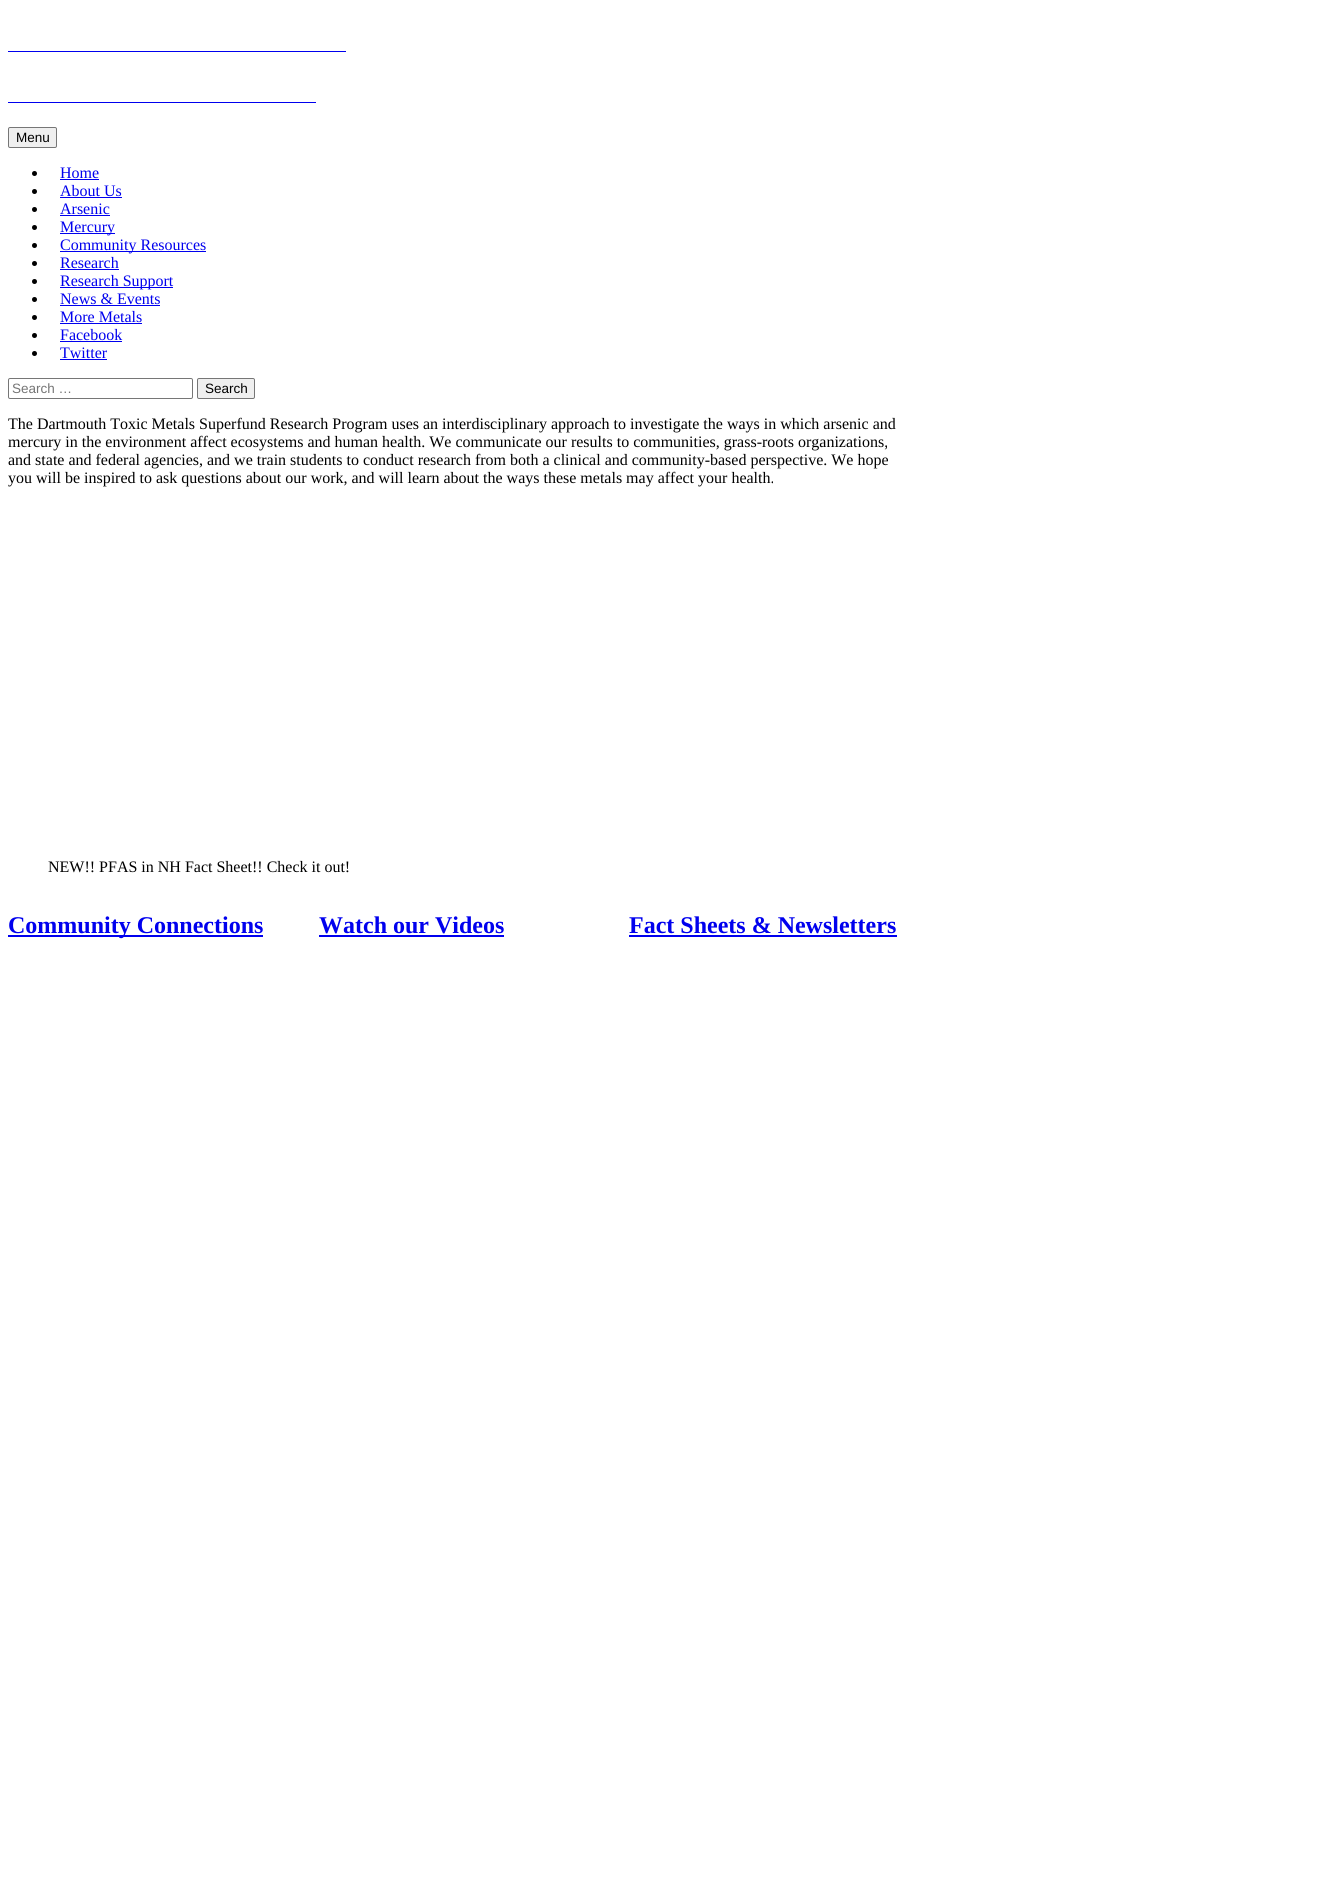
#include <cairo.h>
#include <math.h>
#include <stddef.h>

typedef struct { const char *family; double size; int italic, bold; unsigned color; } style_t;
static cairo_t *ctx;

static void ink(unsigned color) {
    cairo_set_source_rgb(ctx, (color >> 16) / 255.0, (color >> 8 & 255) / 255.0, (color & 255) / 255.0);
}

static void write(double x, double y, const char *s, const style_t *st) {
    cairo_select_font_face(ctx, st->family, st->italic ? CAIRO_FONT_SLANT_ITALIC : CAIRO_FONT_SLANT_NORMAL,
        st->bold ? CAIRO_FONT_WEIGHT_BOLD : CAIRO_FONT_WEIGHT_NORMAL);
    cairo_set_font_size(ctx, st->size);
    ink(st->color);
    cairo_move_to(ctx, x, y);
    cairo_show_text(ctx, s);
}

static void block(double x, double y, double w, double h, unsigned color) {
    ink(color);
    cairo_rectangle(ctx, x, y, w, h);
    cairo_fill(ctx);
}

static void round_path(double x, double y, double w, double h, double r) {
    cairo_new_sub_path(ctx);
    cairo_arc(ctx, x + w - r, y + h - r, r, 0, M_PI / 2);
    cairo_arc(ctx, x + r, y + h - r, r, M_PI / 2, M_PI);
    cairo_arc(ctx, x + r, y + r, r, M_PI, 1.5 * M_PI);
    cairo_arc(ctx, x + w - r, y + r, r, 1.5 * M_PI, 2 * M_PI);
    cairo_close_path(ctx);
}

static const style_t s1 = {"Liberation Sans", 13.5, 0, 0, 0x000000};
static const style_t s2 = {"Liberation Serif", 16, 0, 0, 0x0000ee};
static const style_t s3 = {"Liberation Sans", 13.5, 0, 0, 0x757575};
static const style_t s4 = {"Liberation Serif", 16, 0, 0, 0x000000};
static const style_t s5 = {"Liberation Serif", 24, 0, 1, 0x0000ee};

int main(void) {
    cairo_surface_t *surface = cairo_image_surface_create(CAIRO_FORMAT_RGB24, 1321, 1898);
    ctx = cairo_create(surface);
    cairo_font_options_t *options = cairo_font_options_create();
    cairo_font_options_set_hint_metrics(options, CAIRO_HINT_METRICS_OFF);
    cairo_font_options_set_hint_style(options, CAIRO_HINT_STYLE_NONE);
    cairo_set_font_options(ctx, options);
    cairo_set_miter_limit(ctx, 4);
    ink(0xffffff);
    cairo_paint(ctx);
    block(8, 51, 338, 1, 0x0000ee);
    block(8, 102, 308, 1, 0x0000ee);
    ink(0xefefef);
    round_path(8.5, 127.5, 48, 20, 1.5);
    cairo_fill_preserve(ctx);
    ink(0x767676);
    cairo_set_line_width(ctx, 1);
    cairo_stroke(ctx);
    write(16, 142, "Menu", &s1);
    cairo_new_path(ctx);
    cairo_arc(ctx, 34.5, 173.5, 2.5, 0, 2 * M_PI);
    cairo_fill(ctx);
    write(60, 178, "Home", &s2);
    block(60, 179, 39, 1, 0x0000ee);
    ink(0x000000);
    cairo_new_path(ctx);
    cairo_arc(ctx, 34.5, 191.5, 2.5, 0, 2 * M_PI);
    cairo_fill(ctx);
    write(60, 196, "About Us", &s2);
    block(60, 197, 62, 1, 0x0000ee);
    ink(0x000000);
    cairo_new_path(ctx);
    cairo_arc(ctx, 34.5, 209.5, 2.5, 0, 2 * M_PI);
    cairo_fill(ctx);
    write(60, 214, "Arsenic", &s2);
    block(60, 215, 50, 1, 0x0000ee);
    ink(0x000000);
    cairo_new_path(ctx);
    cairo_arc(ctx, 34.5, 227.5, 2.5, 0, 2 * M_PI);
    cairo_fill(ctx);
    block(60, 233, 55, 1, 0x0000ee);
    write(60, 232, "Mercury", &s2);
    ink(0x000000);
    cairo_new_path(ctx);
    cairo_arc(ctx, 34.5, 245.5, 2.5, 0, 2 * M_PI);
    cairo_fill(ctx);
    block(60, 251, 146, 1, 0x0000ee);
    write(60, 250, "Community Resources", &s2);
    ink(0x000000);
    cairo_new_path(ctx);
    cairo_arc(ctx, 34.5, 263.5, 2.5, 0, 2 * M_PI);
    cairo_fill(ctx);
    write(60, 268, "Research", &s2);
    block(60, 269, 59, 1, 0x0000ee);
    ink(0x000000);
    cairo_new_path(ctx);
    cairo_arc(ctx, 34.5, 281.5, 2.5, 0, 2 * M_PI);
    cairo_fill(ctx);
    block(60, 287, 113, 1, 0x0000ee);
    write(60, 286, "Research Support", &s2);
    ink(0x000000);
    cairo_new_path(ctx);
    cairo_arc(ctx, 34.5, 299.5, 2.5, 0, 2 * M_PI);
    cairo_fill(ctx);
    write(60, 304, "News & Events", &s2);
    block(60, 305, 100, 1, 0x0000ee);
    ink(0x000000);
    cairo_new_path(ctx);
    cairo_arc(ctx, 34.5, 317.5, 2.5, 0, 2 * M_PI);
    cairo_fill(ctx);
    write(60, 322, "More Metals", &s2);
    block(60, 323, 82, 1, 0x0000ee);
    ink(0x000000);
    cairo_new_path(ctx);
    cairo_arc(ctx, 34.5, 335.5, 2.5, 0, 2 * M_PI);
    cairo_fill(ctx);
    write(60, 340, "Facebook", &s2);
    block(60, 341, 62, 1, 0x0000ee);
    ink(0x000000);
    cairo_new_path(ctx);
    cairo_arc(ctx, 34.5, 353.5, 2.5, 0, 2 * M_PI);
    cairo_fill(ctx);
    write(60, 358, "Twitter", &s2);
    block(60, 359, 47, 1, 0x0000ee);
    round_path(8.5, 378.5, 184, 20, 1.5);
    ink(0x767676);
    cairo_stroke(ctx);
    write(12, 393, "Search …", &s3);
    ink(0xefefef);
    round_path(197.5, 378.5, 57, 20, 1.5);
    cairo_fill_preserve(ctx);
    ink(0x767676);
    cairo_stroke(ctx);
    write(205, 393, "Search", &s1);
    write(8, 429, "The Dartmouth Toxic Metals Superfund Research Program uses an interdisciplinary approach to investigate the ways in which arsenic and", &s4);
    write(8, 447, "mercury in the environment affect ecosystems and human health. We communicate our results to communities, grass-roots organizations,", &s4);
    write(8, 465, "and state and federal agencies, and we train students to conduct research from both a clinical and community-based perspective. We hope", &s4);
    write(8, 483, "you will be inspired to ask questions about our work, and will learn about the ways these metals may affect your health.", &s4);
    write(48, 872, "NEW!! PFAS in NH Fact Sheet!! Check it out!", &s4);
    block(8, 935, 255, 2, 0x0000ee);
    write(8, 933, "Community Connections", &s5);
    write(319, 933, "Watch our Videos", &s5);
    block(319, 935, 185, 2, 0x0000ee);
    write(629, 933, "Fact Sheets & Newsletters", &s5);
    block(629, 935, 268, 2, 0x0000ee);
    cairo_surface_write_to_png(surface, "screenshot.png");
    cairo_font_options_destroy(options);
    cairo_destroy(ctx);
    cairo_surface_destroy(surface);
    return 0;
}
